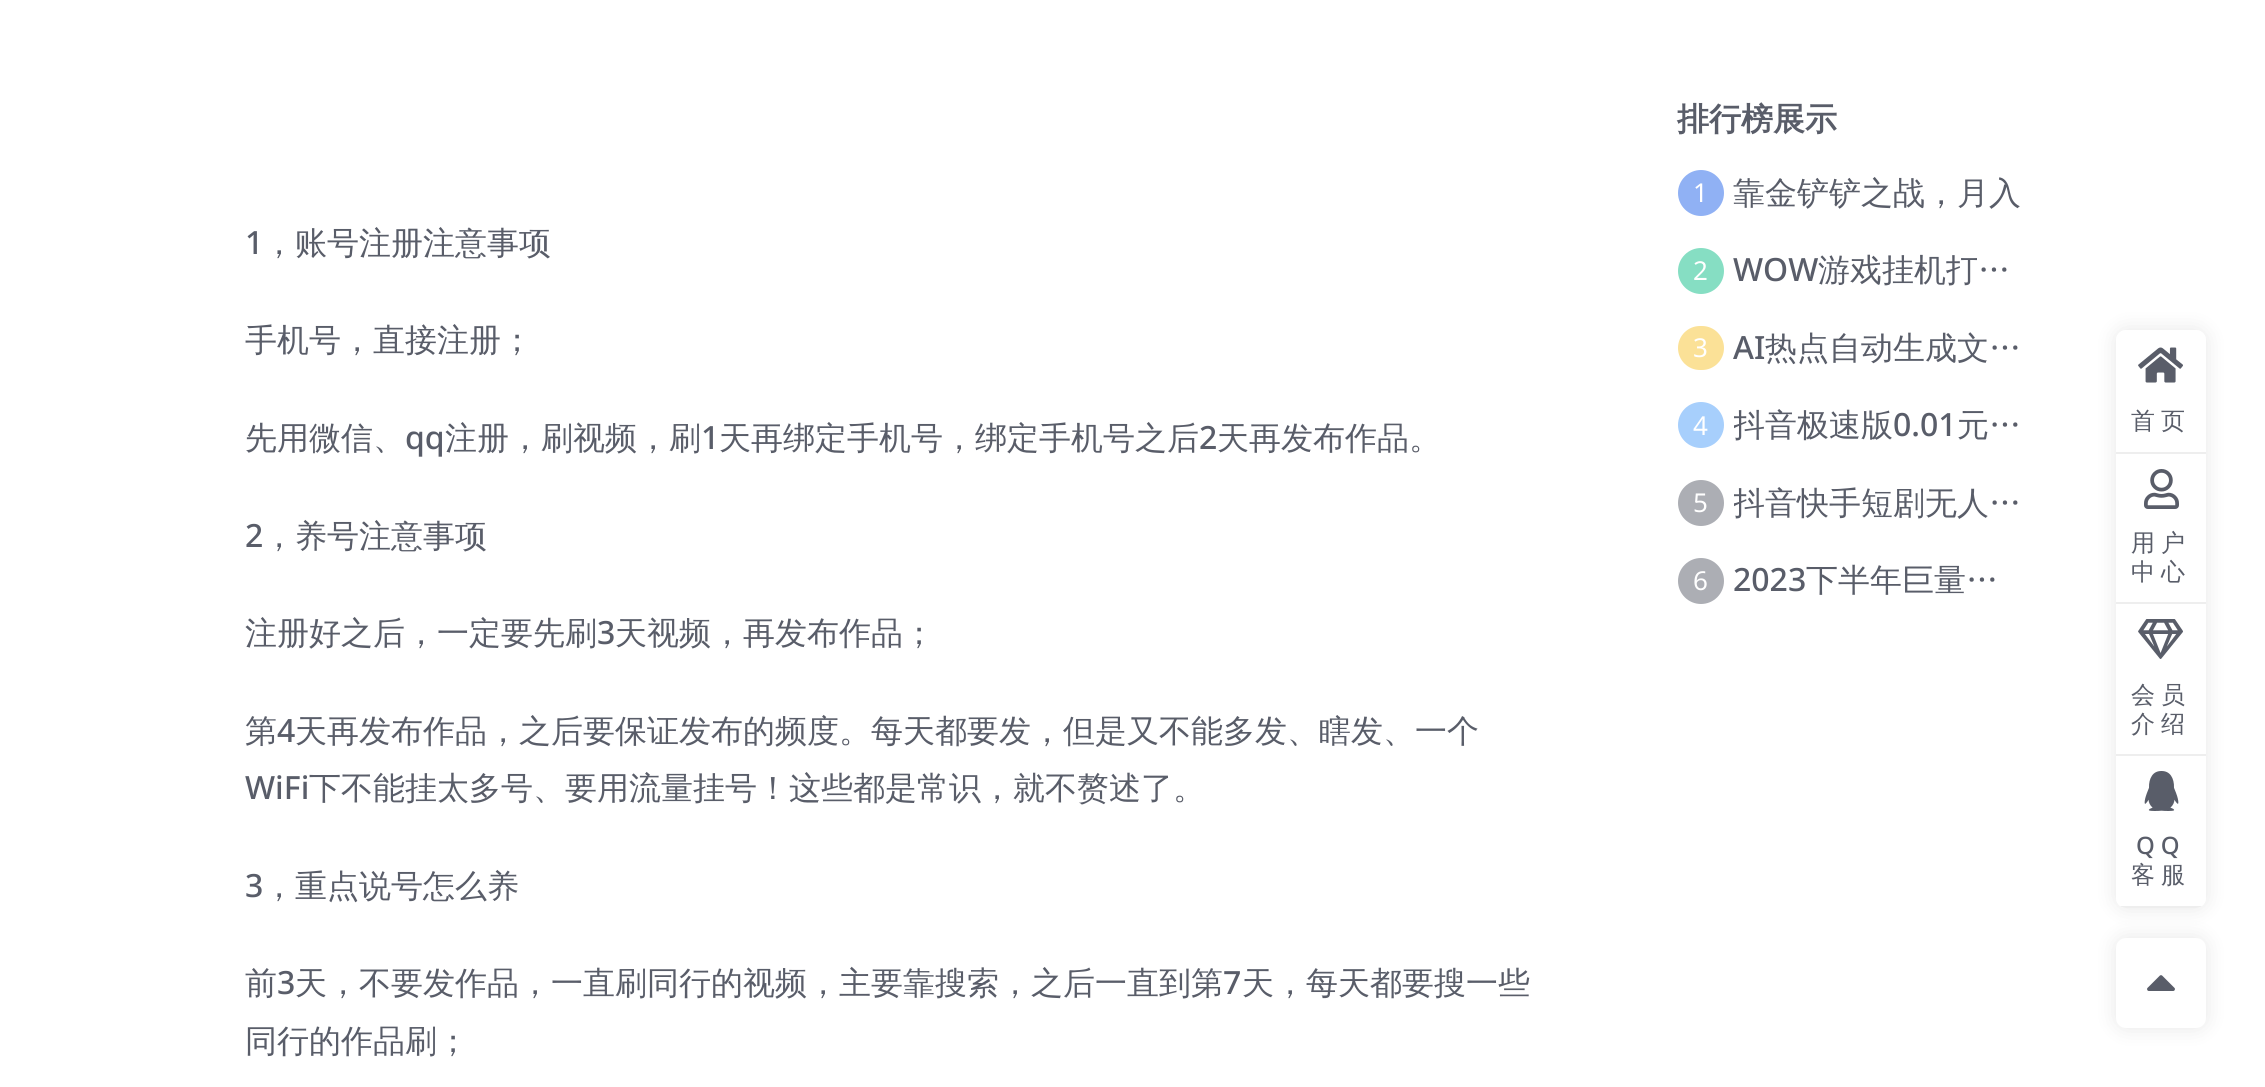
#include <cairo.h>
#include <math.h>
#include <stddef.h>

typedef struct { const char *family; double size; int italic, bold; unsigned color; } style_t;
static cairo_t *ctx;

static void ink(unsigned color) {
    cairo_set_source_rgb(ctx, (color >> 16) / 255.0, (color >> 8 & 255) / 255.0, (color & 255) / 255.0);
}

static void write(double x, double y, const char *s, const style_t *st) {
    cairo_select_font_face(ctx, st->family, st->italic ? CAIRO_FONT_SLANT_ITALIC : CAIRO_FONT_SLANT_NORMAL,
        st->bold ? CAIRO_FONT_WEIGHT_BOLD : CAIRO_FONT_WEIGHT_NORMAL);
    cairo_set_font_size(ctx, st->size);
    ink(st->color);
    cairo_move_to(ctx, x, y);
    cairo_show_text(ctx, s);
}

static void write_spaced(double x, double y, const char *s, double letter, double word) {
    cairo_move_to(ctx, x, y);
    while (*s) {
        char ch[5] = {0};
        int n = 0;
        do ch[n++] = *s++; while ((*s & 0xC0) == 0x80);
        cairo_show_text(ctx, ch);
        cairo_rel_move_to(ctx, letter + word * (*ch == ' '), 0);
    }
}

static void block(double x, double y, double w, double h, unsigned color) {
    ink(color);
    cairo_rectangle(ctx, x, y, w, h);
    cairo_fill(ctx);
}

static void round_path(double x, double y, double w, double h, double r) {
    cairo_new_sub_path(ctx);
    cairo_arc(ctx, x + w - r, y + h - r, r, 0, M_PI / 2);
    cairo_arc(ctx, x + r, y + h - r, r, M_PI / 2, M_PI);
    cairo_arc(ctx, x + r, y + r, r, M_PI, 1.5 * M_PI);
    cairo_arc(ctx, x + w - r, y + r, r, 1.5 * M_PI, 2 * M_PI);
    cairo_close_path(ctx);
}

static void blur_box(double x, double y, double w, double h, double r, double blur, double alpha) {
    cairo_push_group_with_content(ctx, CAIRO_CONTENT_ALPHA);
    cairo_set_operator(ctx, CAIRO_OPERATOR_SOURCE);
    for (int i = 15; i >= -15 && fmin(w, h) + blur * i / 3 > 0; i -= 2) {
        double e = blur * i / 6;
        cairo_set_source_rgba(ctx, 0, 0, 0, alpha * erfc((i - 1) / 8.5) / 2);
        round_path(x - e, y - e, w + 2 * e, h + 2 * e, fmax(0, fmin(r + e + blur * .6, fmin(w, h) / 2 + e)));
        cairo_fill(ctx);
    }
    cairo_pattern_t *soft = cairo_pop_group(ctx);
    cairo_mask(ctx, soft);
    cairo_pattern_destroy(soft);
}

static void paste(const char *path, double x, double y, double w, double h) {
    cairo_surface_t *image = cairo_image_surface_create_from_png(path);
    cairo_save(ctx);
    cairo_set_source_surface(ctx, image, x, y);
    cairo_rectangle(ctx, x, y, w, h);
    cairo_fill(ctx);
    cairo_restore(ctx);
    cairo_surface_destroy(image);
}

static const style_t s1 = {"Noto Sans Medium", 32, 0, 0, 0x595d69};
static const style_t s2 = {"WenQuanYi Zen Hei Medium", 32, 0, 0, 0x595d69};
static const style_t s3 = {"WenQuanYi Zen Hei", 32, 0, 1, 0x595d69};
static const style_t s4 = {"Noto Sans", 26, 0, 0, 0xffffff};

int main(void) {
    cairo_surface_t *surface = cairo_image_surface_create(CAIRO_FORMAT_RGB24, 2265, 1087);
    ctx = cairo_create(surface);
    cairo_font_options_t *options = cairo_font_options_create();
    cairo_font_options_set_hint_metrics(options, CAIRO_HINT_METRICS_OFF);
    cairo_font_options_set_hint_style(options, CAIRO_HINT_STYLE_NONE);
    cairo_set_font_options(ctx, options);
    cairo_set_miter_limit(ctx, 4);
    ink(0xffffff);
    cairo_paint(ctx);
    write(245, 254, "1", &s1);
    write(263, 254, "，账号注册注意事项", &s2);
    write(245, 351, "手机号，直接注册；", &s2);
    write(245, 449, "先用微信、", &s2);
    write(405, 449, "qq", &s1);
    write(445, 449, "注册，刷视频，刷", &s2);
    write(701, 449, "1", &s1);
    write(719, 449, "天再绑定手机号，绑定手机号之后", &s2);
    write(1199, 449, "2", &s1);
    write(1217, 449, "天再发布作品。", &s2);
    write(245, 547, "2", &s1);
    write(263, 547, "，养号注意事项", &s2);
    write(245, 644, "注册好之后，一定要先刷", &s2);
    write(597, 644, "3", &s1);
    write(615, 644, "天视频，再发布作品；", &s2);
    write(245, 742, "第", &s2);
    write(277, 742, "4", &s1);
    write(295, 742, "天再发布作品，之后要保证发布的频度。每天都要发，但是又不能多发、瞎发、一个", &s2);
    write(245, 799, "WiFi", &s1);
    write(309, 799, "下不能挂太多号、要用流量挂号！这些都是常识，就不赘述了。", &s2);
    write(245, 897, "3", &s1);
    write(263, 897, "，重点说号怎么养", &s2);
    write(245, 994, "前", &s2);
    write(277, 994, "3", &s1);
    write(295, 994, "天，不要发作品，一直刷同行的视频，主要靠搜索，之后一直到第", &s2);
    write(1223, 994, "7", &s1);
    write(1242, 994, "天，每天都要搜一些", &s2);
    write(245, 1052, "同行的作品刷；", &s2);
    write(1677, 130, "排行榜展示", &s3);
    ink(0x90b1f4);
    cairo_new_path(ctx);
    cairo_arc(ctx, 1701, 193, 23, 0, 2 * M_PI);
    cairo_fill(ctx);
    write(1693, 202, "1", &s4);
    write(1733, 204, "靠金铲铲之战，月入", &s2);
    ink(0x86dec3);
    cairo_new_path(ctx);
    cairo_arc(ctx, 1701, 271, 23, 0, 2 * M_PI);
    cairo_fill(ctx);
    write(1693, 280, "2", &s4);
    write(1733, 281, "WOW", &s1);
    write(1818, 281, "游戏挂机打…", &s2);
    ink(0xfbe197);
    round_path(1678, 326, 46, 44, 22);
    cairo_fill(ctx);
    write(1693, 357, "3", &s4);
    write(1733, 359, "AI", &s1);
    write(1765, 359, "热点自动生成文…", &s2);
    ink(0xa7cffc);
    cairo_new_path(ctx);
    cairo_arc(ctx, 1701, 425, 23, 0, 2 * M_PI);
    cairo_fill(ctx);
    write(1693, 435, "4", &s4);
    cairo_save(ctx);
    cairo_rectangle(ctx, 1734, 406, 296, 38);
    cairo_clip(ctx);
    write(1733, 436, "抖音极速版", &s2);
    cairo_restore(ctx);
    write(1893, 436, "0.01", &s1);
    write(1957, 436, "元…", &s2);
    ink(0xacaeb4);
    cairo_new_path(ctx);
    cairo_arc(ctx, 1701, 503, 23, 0, 2 * M_PI);
    cairo_fill(ctx);
    write(1693, 512, "5", &s4);
    cairo_save(ctx);
    cairo_rectangle(ctx, 1734, 484, 296, 38);
    cairo_clip(ctx);
    write(1733, 514, "抖音快手短剧无人…", &s2);
    cairo_restore(ctx);
    ink(0xacaeb4);
    cairo_new_path(ctx);
    cairo_arc(ctx, 1701, 581, 23, 0, 2 * M_PI);
    cairo_fill(ctx);
    write(1693, 590, "6", &s4);
    write(1733, 591, "2023", &s1);
    write(1806, 591, "下半年巨量…", &s2);
    cairo_save(ctx);
    cairo_set_fill_rule(ctx, CAIRO_FILL_RULE_EVEN_ODD);
    cairo_new_path(ctx);
    cairo_move_to(ctx, 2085, 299);
    cairo_line_to(ctx, 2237, 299);
    cairo_line_to(ctx, 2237, 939);
    cairo_line_to(ctx, 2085, 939);
    cairo_close_path(ctx);
    cairo_move_to(ctx, 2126, 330);
    cairo_line_to(ctx, 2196, 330);
    cairo_curve_to(ctx, 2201.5, 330, 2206, 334.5, 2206, 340);
    cairo_line_to(ctx, 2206, 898);
    cairo_curve_to(ctx, 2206, 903.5, 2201.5, 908, 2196, 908);
    cairo_line_to(ctx, 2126, 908);
    cairo_curve_to(ctx, 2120.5, 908, 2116, 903.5, 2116, 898);
    cairo_line_to(ctx, 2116, 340);
    cairo_curve_to(ctx, 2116, 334.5, 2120.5, 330, 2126, 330);
    cairo_close_path(ctx);
    cairo_clip(ctx);
    ink(0x000000);
    blur_box(2116, 330, 90, 578, 10, 10, 0.1);
    cairo_restore(ctx);
    block(2116, 452, 90, 2, 0xeeeeee);
    paste("pic1.png", 2138, 347, 45, 36);
    cairo_set_font_size(ctx, 24);
    ink(0x595d69);
    write_spaced(2131, 429, "首页", 6, 0);
    block(2116, 602, 90, 2, 0xeeeeee);
    paste("pic2.png", 2144, 469, 35, 40);
    ink(0x595d69);
    write_spaced(2131, 551, "用户", 6, 0);
    write_spaced(2131, 580, "中心", 6, 0);
    block(2116, 754, 90, 2, 0xeeeeee);
    paste("pic3.png", 2138, 619, 45, 40);
    ink(0x595d69);
    write_spaced(2131, 703, "会员", 6, 0);
    write_spaced(2131, 732, "介绍", 6, 0);
    cairo_save(ctx);
    round_path(2116, 330, 90, 578, 10);
    cairo_clip(ctx);
    block(2116, 906, 90, 2, 0xeeeeee);
    cairo_restore(ctx);
    paste("pic4.png", 2144, 771, 35, 40);
    cairo_select_font_face(ctx, "Noto Sans Medium", CAIRO_FONT_SLANT_NORMAL, CAIRO_FONT_WEIGHT_NORMAL);
    write_spaced(2136, 854, "QQ", 6, 0);
    cairo_select_font_face(ctx, "WenQuanYi Zen Hei Medium", CAIRO_FONT_SLANT_NORMAL, CAIRO_FONT_WEIGHT_NORMAL);
    write_spaced(2131, 883, "客服", 6, 0);
    ink(0x000000);
    blur_box(2116, 938, 90, 90, 10, 10, 0.1);
    ink(0xffffff);
    round_path(2116, 938, 90, 90, 10);
    cairo_fill(ctx);
    paste("pic5.png", 2147, 975, 28, 16);
    cairo_surface_write_to_png(surface, "screenshot.png");
    cairo_font_options_destroy(options);
    cairo_destroy(ctx);
    cairo_surface_destroy(surface);
    return 0;
}
